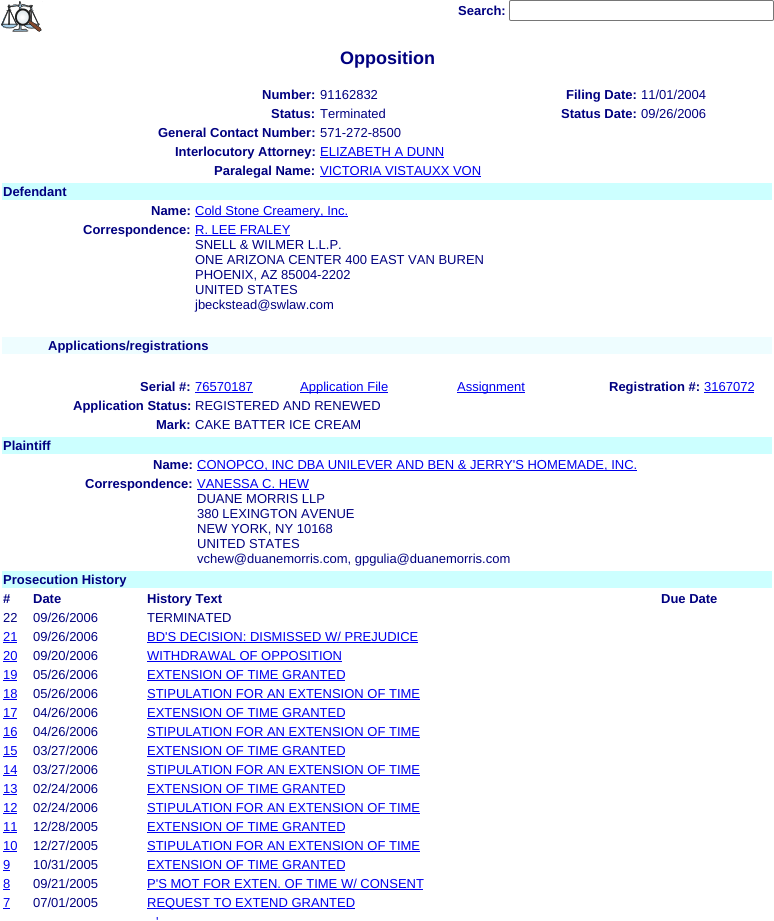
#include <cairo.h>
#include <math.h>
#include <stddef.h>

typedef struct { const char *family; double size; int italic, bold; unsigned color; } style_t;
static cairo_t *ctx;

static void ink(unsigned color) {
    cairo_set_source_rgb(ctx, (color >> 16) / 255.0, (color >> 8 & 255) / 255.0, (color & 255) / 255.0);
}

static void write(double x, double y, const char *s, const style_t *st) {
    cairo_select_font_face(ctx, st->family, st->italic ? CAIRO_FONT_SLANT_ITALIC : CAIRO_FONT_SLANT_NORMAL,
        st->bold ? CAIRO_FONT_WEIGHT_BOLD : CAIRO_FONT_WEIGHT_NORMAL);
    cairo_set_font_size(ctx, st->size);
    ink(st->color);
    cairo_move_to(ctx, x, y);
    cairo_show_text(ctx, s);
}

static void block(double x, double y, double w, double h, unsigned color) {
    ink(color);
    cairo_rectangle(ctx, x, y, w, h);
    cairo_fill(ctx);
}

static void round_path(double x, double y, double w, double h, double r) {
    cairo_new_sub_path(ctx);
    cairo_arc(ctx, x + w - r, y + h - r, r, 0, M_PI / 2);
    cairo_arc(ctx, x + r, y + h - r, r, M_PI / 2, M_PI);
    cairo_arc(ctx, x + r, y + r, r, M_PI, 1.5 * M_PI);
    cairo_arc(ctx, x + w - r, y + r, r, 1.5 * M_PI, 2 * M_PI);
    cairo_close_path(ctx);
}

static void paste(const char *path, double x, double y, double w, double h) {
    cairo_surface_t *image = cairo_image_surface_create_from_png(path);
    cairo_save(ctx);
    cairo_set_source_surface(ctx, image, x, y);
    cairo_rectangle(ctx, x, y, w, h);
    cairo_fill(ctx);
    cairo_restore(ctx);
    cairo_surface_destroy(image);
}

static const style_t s1 = {"Liberation Sans", 13, 0, 1, 0x000080};
static const style_t s2 = {"Liberation Sans", 18, 0, 1, 0x000080};
static const style_t s3 = {"Liberation Sans", 13, 0, 0, 0x000080};
static const style_t s4 = {"Liberation Sans", 13, 0, 0, 0x0000ee};

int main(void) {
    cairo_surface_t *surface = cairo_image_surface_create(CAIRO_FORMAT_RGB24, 774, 921);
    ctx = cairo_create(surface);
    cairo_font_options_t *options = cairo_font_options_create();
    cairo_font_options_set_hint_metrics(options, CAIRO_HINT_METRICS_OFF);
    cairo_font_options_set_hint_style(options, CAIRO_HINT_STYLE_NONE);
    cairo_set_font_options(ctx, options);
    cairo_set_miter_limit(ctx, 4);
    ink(0xffffff);
    cairo_paint(ctx);
    paste("pic1.png", 1, 1, 42, 31);
    write(458, 15, "Search:", &s1);
    round_path(509.5, 0.5, 264, 20, 1.5);
    ink(0x767676);
    cairo_set_line_width(ctx, 1);
    cairo_stroke(ctx);
    write(340, 64, "Opposition", &s2);
    write(262, 99, "Number:", &s1);
    write(320, 99, "91162832", &s3);
    write(566, 99, "Filing Date:", &s1);
    write(641, 99, "11/01/2004", &s3);
    write(271, 118, "Status:", &s1);
    write(320, 118, "Terminated", &s3);
    write(561, 118, "Status Date:", &s1);
    write(641, 118, "09/26/2006", &s3);
    write(158, 137, "General Contact Number:", &s1);
    write(320, 137, "571-272-8500", &s3);
    write(175, 156, "Interlocutory Attorney:", &s1);
    write(320, 156, "ELIZABETH A DUNN", &s4);
    block(320, 157, 124, 1, 0x0000ee);
    write(214, 175, "Paralegal Name:", &s1);
    write(320, 175, "VICTORIA VISTAUXX VON", &s4);
    block(320, 176, 161, 1, 0x0000ee);
    block(2, 183, 770, 17, 0xccffff);
    write(3, 196, "Defendant", &s1);
    write(151, 215, "Name:", &s1);
    block(195, 216, 153, 1, 0x0000ee);
    write(195, 215, "Cold Stone Creamery, Inc.", &s4);
    write(83, 234, "Correspondence:", &s1);
    write(195, 234, "R. LEE FRALEY", &s4);
    block(195, 235, 95, 1, 0x0000ee);
    write(195, 249, "SNELL & WILMER L.L.P.", &s3);
    write(195, 264, "ONE ARIZONA CENTER 400 EAST VAN BUREN", &s3);
    write(195, 279, "PHOENIX, AZ 85004-2202", &s3);
    write(195, 294, "UNITED STATES", &s3);
    write(195, 309, "jbeckstead@swlaw.com", &s3);
    block(2, 337, 770, 17, 0xeefdff);
    write(48, 350, "Applications/registrations", &s1);
    write(140, 391, "Serial #:", &s1);
    write(195, 391, "76570187", &s4);
    block(195, 392, 58, 1, 0x0000ee);
    block(300, 392, 88, 1, 0x0000ee);
    write(300, 391, "Application File", &s4);
    block(457, 392, 68, 1, 0x0000ee);
    write(457, 391, "Assignment", &s4);
    write(609, 391, "Registration #:", &s1);
    write(704, 391, "3167072", &s4);
    block(704, 392, 50, 1, 0x0000ee);
    write(73, 410, "Application Status:", &s1);
    write(195, 410, "REGISTERED AND RENEWED", &s3);
    write(156, 429, "Mark:", &s1);
    write(195, 429, "CAKE BATTER ICE CREAM", &s3);
    block(2, 437, 770, 17, 0xccffff);
    write(3, 450, "Plaintiff", &s1);
    write(153, 469, "Name:", &s1);
    block(197, 470, 440, 1, 0x0000ee);
    write(197, 469, "CONOPCO, INC DBA UNILEVER AND BEN & JERRY'S HOMEMADE, INC.", &s4);
    write(85, 488, "Correspondence:", &s1);
    write(197, 488, "VANESSA C. HEW", &s4);
    block(197, 489, 112, 1, 0x0000ee);
    write(197, 503, "DUANE MORRIS LLP", &s3);
    write(197, 518, "380 LEXINGTON AVENUE", &s3);
    write(197, 533, "NEW YORK, NY 10168", &s3);
    write(197, 548, "UNITED STATES", &s3);
    write(197, 563, "vchew@duanemorris.com, gpgulia@duanemorris.com", &s3);
    block(2, 571, 770, 17, 0xccffff);
    write(3, 584, "Prosecution History", &s1);
    write(3, 603, "#", &s1);
    write(33, 603, "Date", &s1);
    write(147, 603, "History Text", &s1);
    write(661, 603, "Due Date", &s1);
    write(3, 622, "22", &s3);
    write(33, 622, "09/26/2006", &s3);
    write(147, 622, "TERMINATED", &s3);
    write(3, 641, "21", &s4);
    block(3, 642, 14, 1, 0x0000ee);
    write(33, 641, "09/26/2006", &s3);
    write(147, 641, "BD'S DECISION: DISMISSED W/ PREJUDICE", &s4);
    block(147, 642, 271, 1, 0x0000ee);
    write(3, 660, "20", &s4);
    block(3, 661, 14, 1, 0x0000ee);
    write(33, 660, "09/20/2006", &s3);
    write(147, 660, "WITHDRAWAL OF OPPOSITION", &s4);
    block(147, 661, 195, 1, 0x0000ee);
    write(3, 679, "19", &s4);
    block(3, 680, 14, 1, 0x0000ee);
    write(33, 679, "05/26/2006", &s3);
    write(147, 679, "EXTENSION OF TIME GRANTED", &s4);
    block(147, 680, 198, 1, 0x0000ee);
    write(3, 698, "18", &s4);
    block(3, 699, 14, 1, 0x0000ee);
    write(33, 698, "05/26/2006", &s3);
    write(147, 698, "STIPULATION FOR AN EXTENSION OF TIME", &s4);
    block(147, 699, 273, 1, 0x0000ee);
    write(3, 717, "17", &s4);
    block(3, 718, 14, 1, 0x0000ee);
    write(33, 717, "04/26/2006", &s3);
    write(147, 717, "EXTENSION OF TIME GRANTED", &s4);
    block(147, 718, 198, 1, 0x0000ee);
    write(3, 736, "16", &s4);
    block(3, 737, 14, 1, 0x0000ee);
    write(33, 736, "04/26/2006", &s3);
    write(147, 736, "STIPULATION FOR AN EXTENSION OF TIME", &s4);
    block(147, 737, 273, 1, 0x0000ee);
    write(3, 755, "15", &s4);
    block(3, 756, 14, 1, 0x0000ee);
    write(33, 755, "03/27/2006", &s3);
    write(147, 755, "EXTENSION OF TIME GRANTED", &s4);
    block(147, 756, 198, 1, 0x0000ee);
    write(3, 774, "14", &s4);
    block(3, 775, 14, 1, 0x0000ee);
    write(33, 774, "03/27/2006", &s3);
    write(147, 774, "STIPULATION FOR AN EXTENSION OF TIME", &s4);
    block(147, 775, 273, 1, 0x0000ee);
    write(3, 793, "13", &s4);
    block(3, 794, 14, 1, 0x0000ee);
    write(33, 793, "02/24/2006", &s3);
    write(147, 793, "EXTENSION OF TIME GRANTED", &s4);
    block(147, 794, 198, 1, 0x0000ee);
    write(3, 812, "12", &s4);
    block(3, 813, 14, 1, 0x0000ee);
    write(33, 812, "02/24/2006", &s3);
    write(147, 812, "STIPULATION FOR AN EXTENSION OF TIME", &s4);
    block(147, 813, 273, 1, 0x0000ee);
    write(3, 831, "11", &s4);
    block(3, 832, 14, 1, 0x0000ee);
    write(33, 831, "12/28/2005", &s3);
    write(147, 831, "EXTENSION OF TIME GRANTED", &s4);
    block(147, 832, 198, 1, 0x0000ee);
    write(3, 850, "10", &s4);
    block(3, 851, 14, 1, 0x0000ee);
    write(33, 850, "12/27/2005", &s3);
    write(147, 850, "STIPULATION FOR AN EXTENSION OF TIME", &s4);
    block(147, 851, 273, 1, 0x0000ee);
    write(3, 869, "9", &s4);
    block(3, 870, 7, 1, 0x0000ee);
    write(33, 869, "10/31/2005", &s3);
    write(147, 869, "EXTENSION OF TIME GRANTED", &s4);
    block(147, 870, 198, 1, 0x0000ee);
    write(3, 888, "8", &s4);
    block(3, 889, 7, 1, 0x0000ee);
    write(33, 888, "09/21/2005", &s3);
    write(147, 888, "P'S MOT FOR EXTEN. OF TIME W/ CONSENT", &s4);
    block(147, 889, 276, 1, 0x0000ee);
    write(3, 907, "7", &s4);
    block(3, 908, 7, 1, 0x0000ee);
    write(33, 907, "07/01/2005", &s3);
    block(147, 908, 208, 1, 0x0000ee);
    write(147, 907, "REQUEST TO EXTEND GRANTED", &s4);
    write(156, 926, "'", &s4);
    cairo_surface_write_to_png(surface, "screenshot.png");
    cairo_font_options_destroy(options);
    cairo_destroy(ctx);
    cairo_surface_destroy(surface);
    return 0;
}
